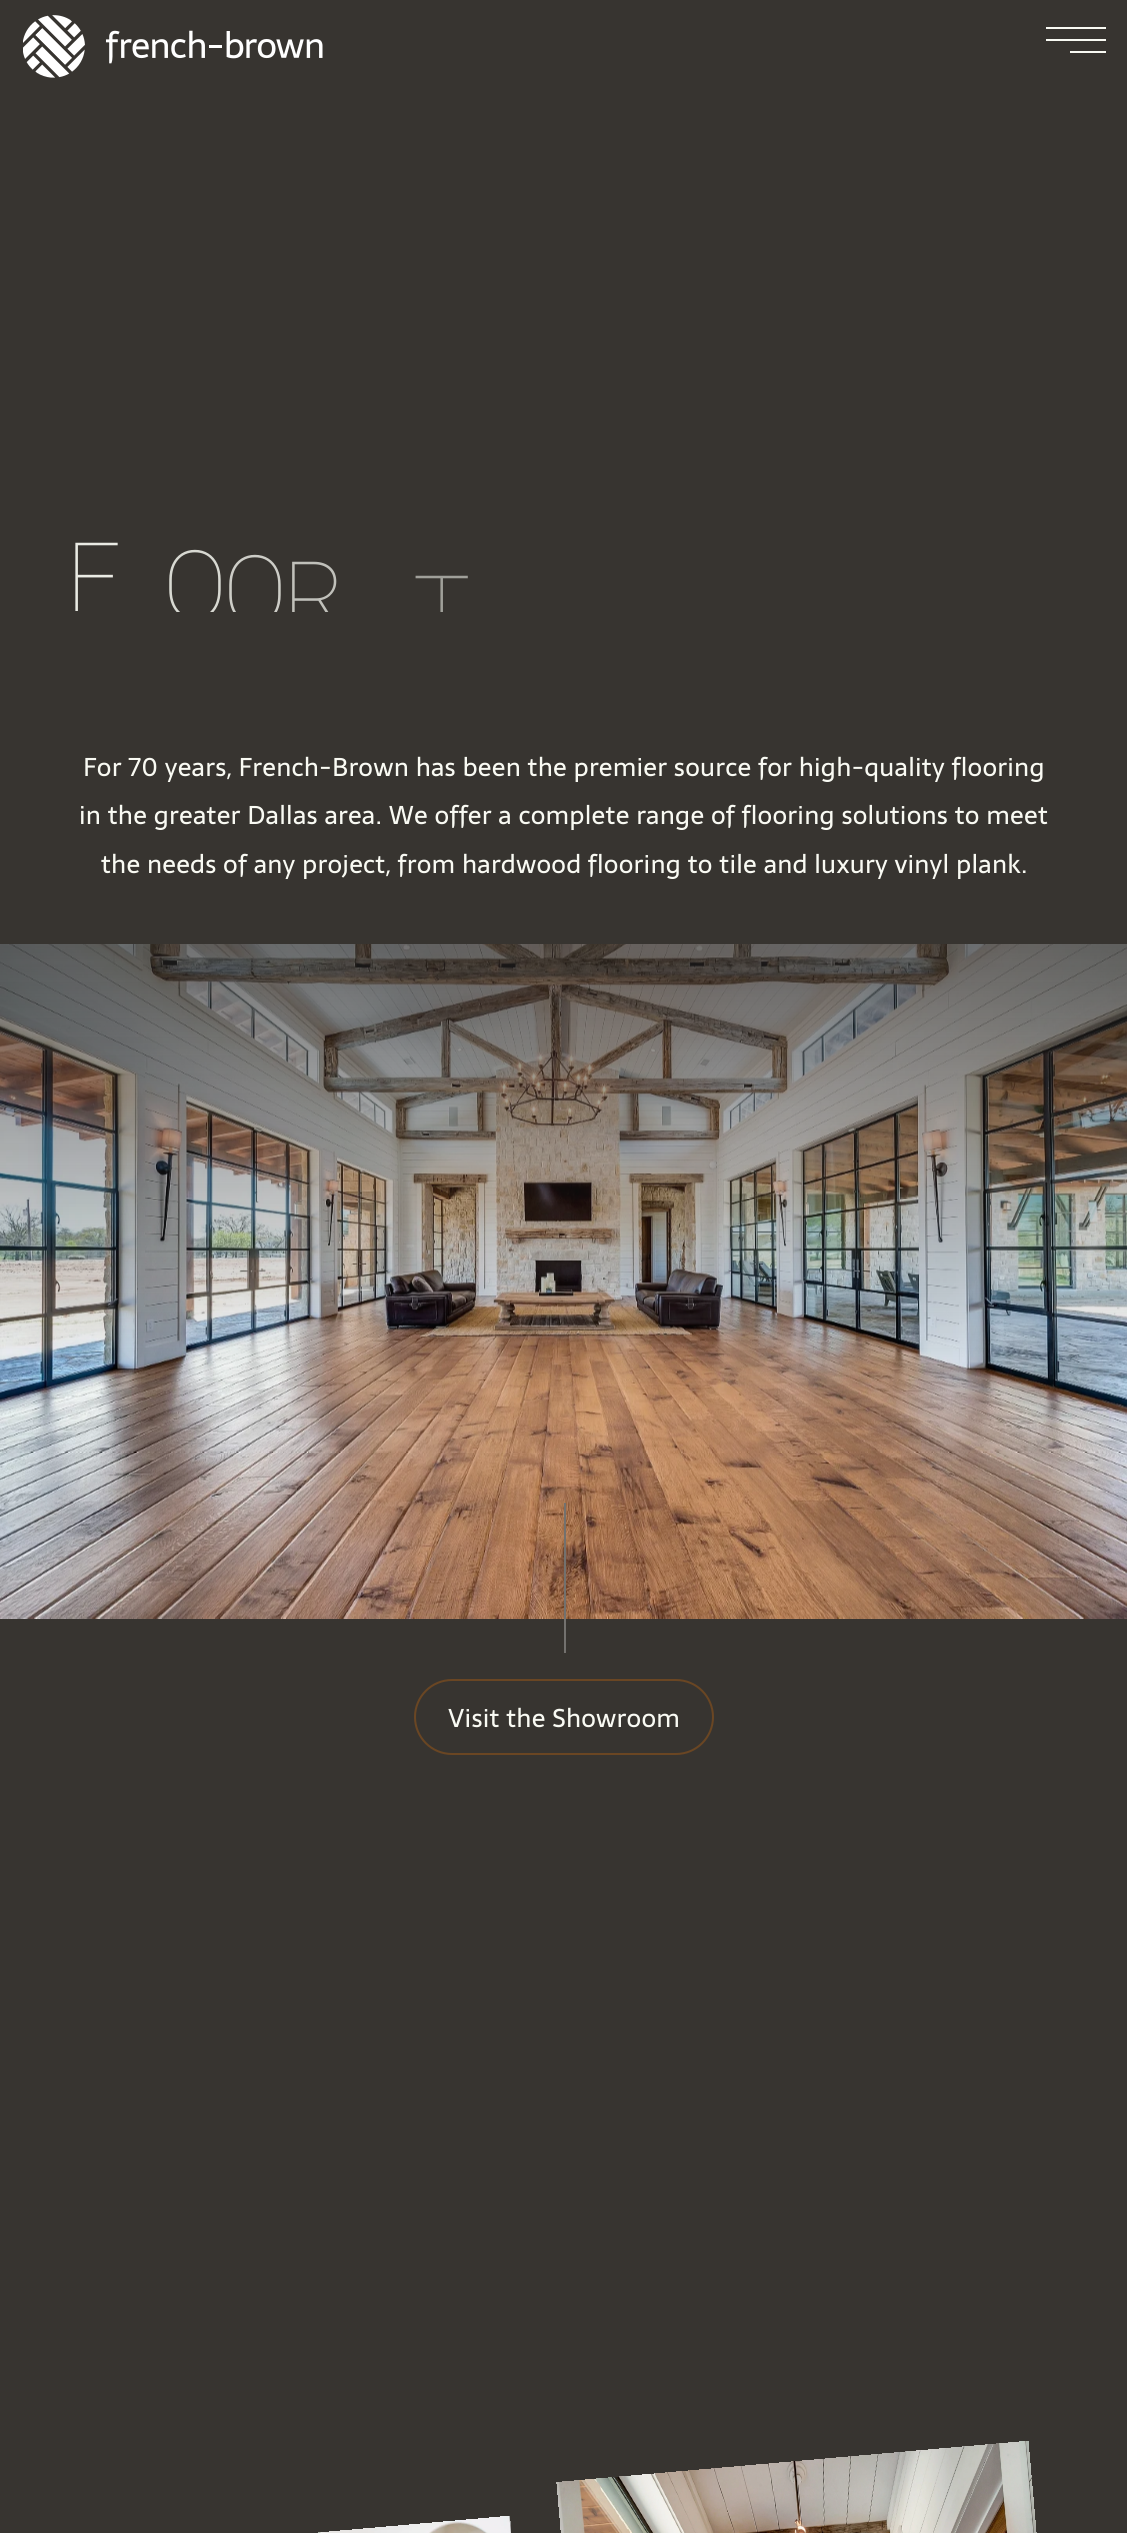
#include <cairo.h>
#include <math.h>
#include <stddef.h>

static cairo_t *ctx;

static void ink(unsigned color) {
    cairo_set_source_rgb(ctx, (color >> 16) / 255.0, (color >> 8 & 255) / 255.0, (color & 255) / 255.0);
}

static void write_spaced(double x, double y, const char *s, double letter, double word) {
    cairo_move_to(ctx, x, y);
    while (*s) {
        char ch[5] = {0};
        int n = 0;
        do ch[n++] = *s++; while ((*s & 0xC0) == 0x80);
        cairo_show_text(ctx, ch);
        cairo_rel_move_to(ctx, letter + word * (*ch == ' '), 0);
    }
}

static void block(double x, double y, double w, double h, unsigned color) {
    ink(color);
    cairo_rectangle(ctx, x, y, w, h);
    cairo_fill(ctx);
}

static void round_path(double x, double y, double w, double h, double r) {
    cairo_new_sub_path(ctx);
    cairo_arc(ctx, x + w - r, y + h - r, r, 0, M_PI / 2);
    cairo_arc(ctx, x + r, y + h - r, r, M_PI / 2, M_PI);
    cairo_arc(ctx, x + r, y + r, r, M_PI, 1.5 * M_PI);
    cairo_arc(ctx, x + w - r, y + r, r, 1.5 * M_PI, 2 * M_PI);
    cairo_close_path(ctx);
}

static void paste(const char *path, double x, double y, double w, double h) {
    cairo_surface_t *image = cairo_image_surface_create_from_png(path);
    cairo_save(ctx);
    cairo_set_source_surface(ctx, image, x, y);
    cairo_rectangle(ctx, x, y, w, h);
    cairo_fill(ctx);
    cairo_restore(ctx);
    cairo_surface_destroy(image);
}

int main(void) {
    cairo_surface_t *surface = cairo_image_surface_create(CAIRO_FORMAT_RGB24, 1127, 2533);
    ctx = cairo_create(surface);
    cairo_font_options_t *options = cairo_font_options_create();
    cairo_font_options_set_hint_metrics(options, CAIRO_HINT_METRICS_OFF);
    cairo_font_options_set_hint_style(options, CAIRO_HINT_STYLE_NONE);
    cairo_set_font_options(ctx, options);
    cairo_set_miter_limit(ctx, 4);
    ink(0x373430);
    cairo_paint(ctx);
    paste("pic1.png", 23, 15, 300, 63);
    block(1046, 27, 60, 2, 0xf9faf3);
    block(1046, 39, 60, 2, 0xf9faf3);
    block(1070, 51, 36, 2, 0xf9faf3);
    cairo_select_font_face(ctx, "Roboto Thin", CAIRO_FONT_SLANT_NORMAL, CAIRO_FONT_WEIGHT_NORMAL);
    cairo_set_font_size(ctx, 96);
    ink(0xeaebe4);
    write_spaced(66, 611, "F", -4, 0);
    cairo_save(ctx);
    cairo_rectangle(ctx, 23, 525, 1083, 87);
    cairo_clip(ctx);
    ink(0xd8d9d2);
    write_spaced(163, 619, "O", -4, 0);
    ink(0xcdcdc7);
    write_spaced(223, 624, "O", -4, 0);
    ink(0xc0c0ba);
    write_spaced(283, 630, "R", -4, 0);
    ink(0xa0a09a);
    write_spaced(413, 644, "T", -4, 0);
    cairo_restore(ctx);
    cairo_select_font_face(ctx, "Sarala", CAIRO_FONT_SLANT_NORMAL, CAIRO_FONT_WEIGHT_NORMAL);
    cairo_set_font_size(ctx, 25.5);
    ink(0xf9faf3);
    write_spaced(83, 776, "For 70 years, French-Brown has been the premier source for high-quality flooring", 0.25, 0);
    write_spaced(79, 824, "in the greater Dallas area. We offer a complete range of flooring solutions to meet", 0.25, 0);
    write_spaced(101, 873, "the needs of any project, from hardwood flooring to tile and luxury vinyl plank.", 0.25, 0);
    paste("pic2.png", 0, 944, 1127, 675);
    block(564, 1503, 2, 150, 0x73716e);
    round_path(415, 1680, 298, 74, 37);
    ink(0x6a4623);
    cairo_stroke(ctx);
    ink(0xf9faf3);
    write_spaced(448, 1727, "Visit the Showroom", 0.25, 0);
    paste("pic3.png", 318, 2516, 193, 17);
    paste("pic4.png", 556, 2441, 481, 92);
    cairo_surface_write_to_png(surface, "screenshot.png");
    cairo_font_options_destroy(options);
    cairo_destroy(ctx);
    cairo_surface_destroy(surface);
    return 0;
}
